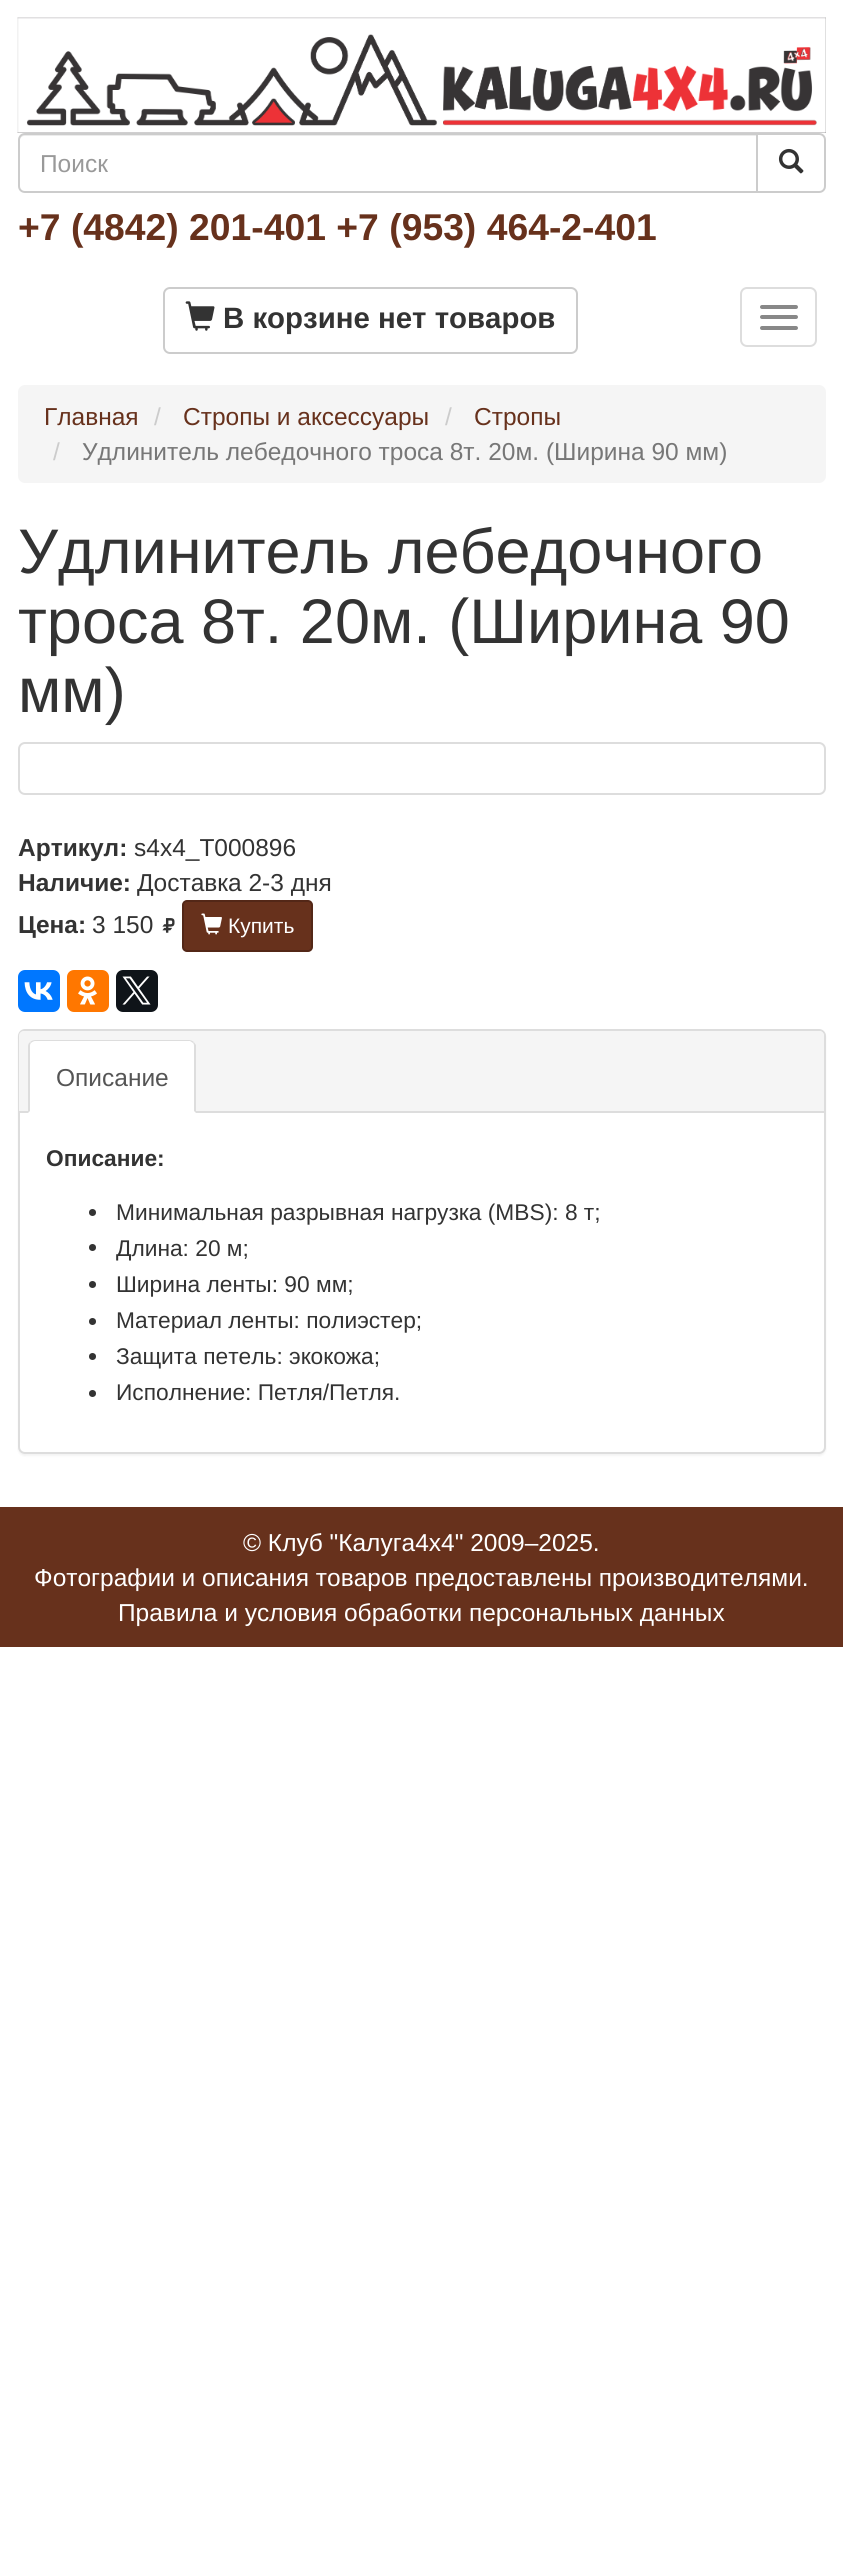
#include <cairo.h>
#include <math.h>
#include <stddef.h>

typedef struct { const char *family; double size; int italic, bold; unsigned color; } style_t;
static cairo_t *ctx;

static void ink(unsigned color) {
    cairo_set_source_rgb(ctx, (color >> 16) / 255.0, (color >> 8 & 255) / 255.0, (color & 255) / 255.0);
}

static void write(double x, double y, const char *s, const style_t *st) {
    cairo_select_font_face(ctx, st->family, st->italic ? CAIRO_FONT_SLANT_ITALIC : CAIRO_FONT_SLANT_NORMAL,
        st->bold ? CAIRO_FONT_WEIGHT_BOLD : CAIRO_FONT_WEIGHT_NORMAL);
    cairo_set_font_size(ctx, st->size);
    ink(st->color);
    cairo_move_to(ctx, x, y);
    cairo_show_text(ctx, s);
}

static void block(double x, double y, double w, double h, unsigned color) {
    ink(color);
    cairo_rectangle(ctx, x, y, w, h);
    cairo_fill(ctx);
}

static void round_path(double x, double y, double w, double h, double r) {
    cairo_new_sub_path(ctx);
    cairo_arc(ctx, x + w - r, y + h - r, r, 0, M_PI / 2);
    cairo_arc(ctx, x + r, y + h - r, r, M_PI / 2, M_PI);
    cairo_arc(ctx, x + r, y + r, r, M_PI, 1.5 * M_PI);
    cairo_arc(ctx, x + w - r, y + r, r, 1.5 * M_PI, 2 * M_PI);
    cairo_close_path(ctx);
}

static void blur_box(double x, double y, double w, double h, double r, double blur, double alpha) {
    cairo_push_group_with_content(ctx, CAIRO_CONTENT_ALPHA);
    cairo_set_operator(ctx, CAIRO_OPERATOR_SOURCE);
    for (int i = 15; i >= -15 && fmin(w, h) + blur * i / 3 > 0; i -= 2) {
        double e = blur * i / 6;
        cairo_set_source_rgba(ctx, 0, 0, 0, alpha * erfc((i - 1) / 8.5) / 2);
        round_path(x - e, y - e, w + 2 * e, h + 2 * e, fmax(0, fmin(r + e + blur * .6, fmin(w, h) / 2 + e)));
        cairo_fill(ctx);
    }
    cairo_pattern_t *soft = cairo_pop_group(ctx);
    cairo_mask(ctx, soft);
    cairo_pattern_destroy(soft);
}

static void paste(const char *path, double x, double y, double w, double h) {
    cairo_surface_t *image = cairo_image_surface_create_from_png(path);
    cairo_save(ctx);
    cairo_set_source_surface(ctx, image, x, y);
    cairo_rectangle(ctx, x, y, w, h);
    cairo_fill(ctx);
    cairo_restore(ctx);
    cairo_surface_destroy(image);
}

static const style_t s1 = {"Liberation Sans", 24.5, 0, 0, 0x999999};
static const style_t s2 = {"Liberation Sans", 37.3, 0, 1, 0x67311c};
static const style_t s3 = {"Liberation Sans", 29.4, 0, 1, 0x333333};
static const style_t s4 = {"Liberation Sans", 24.5, 0, 0, 0x67311c};
static const style_t s5 = {"Liberation Sans", 24.5, 0, 0, 0xcccccc};
static const style_t s6 = {"Liberation Sans", 24.5, 0, 0, 0x777777};
static const style_t s7 = {"Liberation Sans", 63, 0, 0, 0x333333};
static const style_t s8 = {"Liberation Sans", 24.5, 0, 1, 0x333333};
static const style_t s9 = {"Liberation Sans", 24.5, 0, 0, 0x333333};
static const style_t s10 = {"Liberation Sans", 21, 0, 0, 0xffffff};
static const style_t s11 = {"Liberation Sans", 24.5, 0, 0, 0x555555};
static const style_t s12 = {"Liberation Sans", 22.75, 0, 1, 0x333333};
static const style_t s13 = {"Liberation Sans", 22.75, 0, 0, 0x333333};
static const style_t s14 = {"Liberation Sans", 24.5, 0, 0, 0xffffff};

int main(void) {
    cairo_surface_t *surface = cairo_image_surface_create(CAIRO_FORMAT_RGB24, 843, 2571);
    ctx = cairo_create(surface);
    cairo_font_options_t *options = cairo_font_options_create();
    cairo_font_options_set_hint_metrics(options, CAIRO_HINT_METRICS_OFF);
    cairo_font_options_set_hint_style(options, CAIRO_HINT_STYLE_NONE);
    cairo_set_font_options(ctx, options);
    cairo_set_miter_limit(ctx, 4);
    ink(0xffffff);
    cairo_paint(ctx);
    paste("pic1.png", 17, 17, 809, 116);
    ink(0xececec);
    cairo_new_path(ctx);
    cairo_move_to(ctx, 24, 136);
    cairo_line_to(ctx, 756, 136);
    cairo_line_to(ctx, 756, 135);
    cairo_line_to(ctx, 24, 135);
    cairo_curve_to(ctx, 21, 135, 19, 137, 19, 140);
    cairo_line_to(ctx, 19, 142);
    cairo_curve_to(ctx, 19, 139, 22, 136, 24, 136);
    cairo_close_path(ctx);
    cairo_fill(ctx);
    cairo_new_path(ctx);
    cairo_move_to(ctx, 25, 134);
    cairo_line_to(ctx, 757, 134);
    cairo_line_to(ctx, 757, 192);
    cairo_line_to(ctx, 25, 192);
    cairo_curve_to(ctx, 21.5, 192, 19, 189.5, 19, 186);
    cairo_line_to(ctx, 19, 140);
    cairo_curve_to(ctx, 19, 136.5, 21.5, 134, 25, 134);
    cairo_close_path(ctx);
    ink(0xcccccc);
    cairo_stroke(ctx);
    write(40, 172, "Поиск", &s1);
    ink(0xffffff);
    cairo_new_path(ctx);
    cairo_move_to(ctx, 757, 134);
    cairo_line_to(ctx, 819, 134);
    cairo_curve_to(ctx, 822.5, 134, 825, 136.5, 825, 140);
    cairo_line_to(ctx, 825, 186);
    cairo_curve_to(ctx, 825, 189.5, 822.5, 192, 819, 192);
    cairo_line_to(ctx, 757, 192);
    cairo_close_path(ctx);
    cairo_fill_preserve(ctx);
    ink(0xcccccc);
    cairo_stroke(ctx);
    paste("pic2.png", 778, 148, 26, 26);
    write(18, 240, "+7 (4842) 201-401 +7 (953) 464-2-401", &s2);
    round_path(164, 288, 413, 65, 6);
    ink(0xcccccc);
    cairo_stroke(ctx);
    paste("pic3.png", 185, 301, 30, 30);
    write(223, 328, "В корзине нет товаров", &s3);
    round_path(741, 288, 75, 58, 6);
    ink(0xdddddd);
    cairo_stroke(ctx);
    ink(0x888888);
    round_path(760, 305, 38, 4, 2);
    cairo_fill(ctx);
    round_path(760, 315, 38, 4, 2);
    cairo_fill(ctx);
    round_path(760, 326, 38, 4, 2);
    cairo_fill(ctx);
    ink(0xf5f5f5);
    round_path(18, 385, 808, 98, 7);
    cairo_fill(ctx);
    write(44, 425, "Главная", &s4);
    write(154, 425, "/", &s5);
    write(183, 425, "Стропы и аксессуары", &s4);
    write(445, 425, "/", &s5);
    write(474, 425, "Стропы", &s4);
    write(53, 460, "/", &s5);
    write(82, 460, "Удлинитель лебедочного троса 8т. 20м. (Ширина 90 мм)", &s6);
    write(18, 573, "Удлинитель лебедочного", &s7);
    write(18, 643, "троса 8т. 20м. (Ширина 90", &s7);
    write(18, 712, "мм)", &s7);
    round_path(19, 743, 806, 51, 6);
    ink(0xdddddd);
    cairo_stroke(ctx);
    write(18, 856, "Артикул:", &s8);
    write(134, 856, "s4x4_T000896", &s9);
    write(18, 891, "Наличие:", &s8);
    write(137, 891, "Доставка 2-3 дня", &s9);
    write(18, 933, "Цена:", &s8);
    write(92, 933, "3 150", &s9);
    paste("pic4.png", 162, 918, 13, 15);
    ink(0x67311c);
    round_path(183, 901, 129, 50, 4);
    cairo_fill_preserve(ctx);
    ink(0x532717);
    cairo_stroke(ctx);
    paste("pic5.png", 201, 913, 21, 22);
    write(228, 933, "Купить", &s10);
    ink(0x0077ff);
    round_path(18, 970, 42, 42, 7);
    cairo_fill(ctx);
    paste("pic6.png", 24, 982, 29, 18);
    ink(0xff7700);
    round_path(67, 970, 42, 42, 7);
    cairo_fill(ctx);
    paste("pic7.png", 78, 976, 19, 29);
    ink(0x0f1419);
    round_path(116, 970, 42, 42, 7);
    cairo_fill(ctx);
    paste("pic8.png", 122, 976, 29, 29);
    ink(0x000000);
    blur_box(18, 1031, 808, 425, 7, 1, 0.05);
    ink(0xffffff);
    round_path(19, 1030, 806, 423, 6);
    cairo_fill_preserve(ctx);
    ink(0xdddddd);
    cairo_stroke(ctx);
    ink(0xf5f5f5);
    cairo_new_path(ctx);
    cairo_move_to(ctx, 24, 1031);
    cairo_line_to(ctx, 819, 1031);
    cairo_curve_to(ctx, 822, 1031, 824, 1033, 824, 1036);
    cairo_line_to(ctx, 824, 1113);
    cairo_line_to(ctx, 19, 1113);
    cairo_line_to(ctx, 19, 1036);
    cairo_curve_to(ctx, 19, 1033, 21, 1031, 24, 1031);
    cairo_close_path(ctx);
    cairo_fill(ctx);
    block(19, 1111, 805, 2, 0xdddddd);
    ink(0xffffff);
    cairo_new_path(ctx);
    cairo_move_to(ctx, 35, 1040);
    cairo_line_to(ctx, 189, 1040);
    cairo_curve_to(ctx, 193, 1040, 196, 1043, 196, 1047);
    cairo_line_to(ctx, 196, 1113);
    cairo_line_to(ctx, 28, 1113);
    cairo_line_to(ctx, 28, 1047);
    cairo_curve_to(ctx, 28, 1043, 31, 1040, 35, 1040);
    cairo_close_path(ctx);
    cairo_fill(ctx);
    ink(0xdddddd);
    cairo_new_path(ctx);
    cairo_move_to(ctx, 35, 1040);
    cairo_curve_to(ctx, 33, 1040, 31, 1041, 30, 1042);
    cairo_line_to(ctx, 31, 1043);
    cairo_curve_to(ctx, 32, 1042, 34, 1041, 35, 1041);
    cairo_line_to(ctx, 190, 1041);
    cairo_line_to(ctx, 193, 1043);
    cairo_line_to(ctx, 194, 1042);
    cairo_curve_to(ctx, 193, 1041, 191, 1040, 189, 1040);
    cairo_close_path(ctx);
    cairo_fill(ctx);
    cairo_new_path(ctx);
    cairo_move_to(ctx, 194, 1042);
    cairo_line_to(ctx, 196, 1045);
    cairo_line_to(ctx, 196, 1113);
    cairo_line_to(ctx, 194, 1111);
    cairo_line_to(ctx, 194, 1046);
    cairo_curve_to(ctx, 194, 1045, 194, 1044, 193, 1043);
    cairo_close_path(ctx);
    cairo_fill(ctx);
    cairo_new_path(ctx);
    cairo_move_to(ctx, 28, 1113);
    cairo_line_to(ctx, 30, 1111);
    cairo_line_to(ctx, 30, 1046);
    cairo_curve_to(ctx, 30, 1045, 30, 1044, 31, 1043);
    cairo_line_to(ctx, 30, 1042);
    cairo_curve_to(ctx, 29, 1043, 28, 1044, 28, 1046);
    cairo_close_path(ctx);
    cairo_fill(ctx);
    write(56, 1086, "Описание", &s11);
    write(46, 1166, "Описание:", &s12);
    cairo_new_path(ctx);
    cairo_arc(ctx, 92.5, 1212.5, 3.5, 0, 2 * M_PI);
    cairo_fill(ctx);
    write(116, 1220, "Минимальная разрывная нагрузка (MBS): 8 т;", &s13);
    cairo_new_path(ctx);
    cairo_arc(ctx, 92.5, 1247.5, 3.5, 0, 2 * M_PI);
    cairo_fill(ctx);
    write(116, 1256, "Длина: 20 м;", &s13);
    cairo_new_path(ctx);
    cairo_arc(ctx, 92.5, 1284.5, 3.5, 0, 2 * M_PI);
    cairo_fill(ctx);
    write(116, 1292, "Ширина ленты: 90 мм;", &s13);
    cairo_new_path(ctx);
    cairo_arc(ctx, 92.5, 1321.5, 3.5, 0, 2 * M_PI);
    cairo_fill(ctx);
    write(116, 1328, "Материал ленты: полиэстер;", &s13);
    cairo_new_path(ctx);
    cairo_arc(ctx, 92.5, 1356.5, 3.5, 0, 2 * M_PI);
    cairo_fill(ctx);
    write(116, 1364, "Защита петель: экокожа;", &s13);
    cairo_new_path(ctx);
    cairo_arc(ctx, 92.5, 1393.5, 3.5, 0, 2 * M_PI);
    cairo_fill(ctx);
    write(116, 1400, "Исполнение: Петля/Петля.", &s13);
    block(0, 1507, 843, 140, 0x67311c);
    write(243, 1551, "© Клуб \"Калуга4х4\" 2009–2025.", &s14);
    write(34, 1586, "Фотографии и описания товаров предоставлены производителями.", &s14);
    write(118, 1621, "Правила и условия обработки персональных данных", &s14);
    cairo_surface_write_to_png(surface, "screenshot.png");
    cairo_font_options_destroy(options);
    cairo_destroy(ctx);
    cairo_surface_destroy(surface);
    return 0;
}
